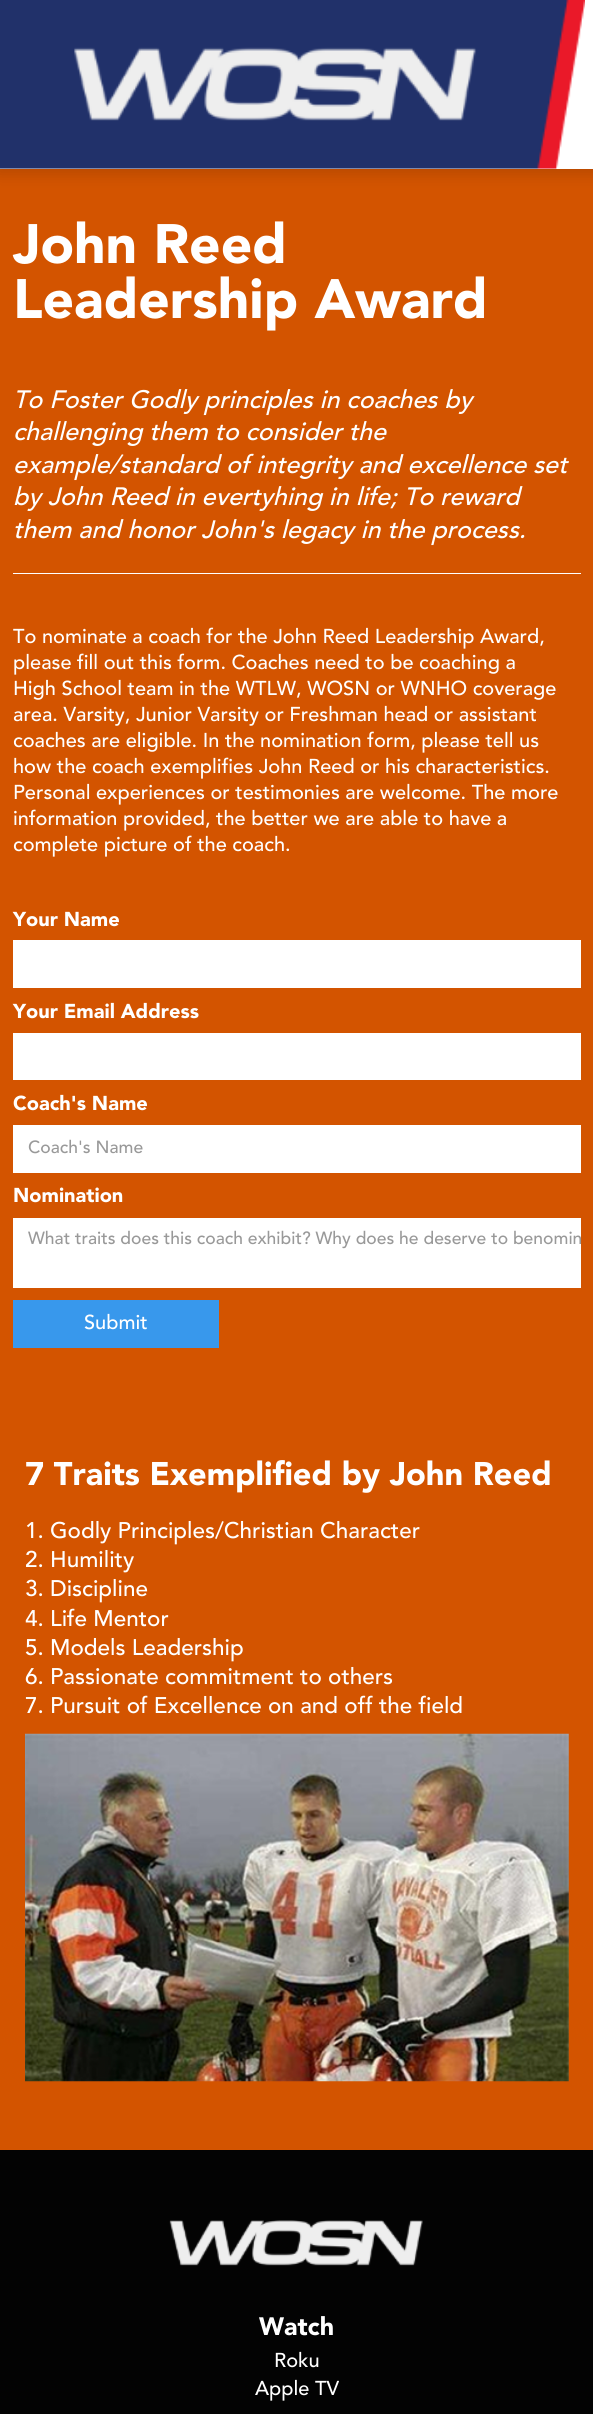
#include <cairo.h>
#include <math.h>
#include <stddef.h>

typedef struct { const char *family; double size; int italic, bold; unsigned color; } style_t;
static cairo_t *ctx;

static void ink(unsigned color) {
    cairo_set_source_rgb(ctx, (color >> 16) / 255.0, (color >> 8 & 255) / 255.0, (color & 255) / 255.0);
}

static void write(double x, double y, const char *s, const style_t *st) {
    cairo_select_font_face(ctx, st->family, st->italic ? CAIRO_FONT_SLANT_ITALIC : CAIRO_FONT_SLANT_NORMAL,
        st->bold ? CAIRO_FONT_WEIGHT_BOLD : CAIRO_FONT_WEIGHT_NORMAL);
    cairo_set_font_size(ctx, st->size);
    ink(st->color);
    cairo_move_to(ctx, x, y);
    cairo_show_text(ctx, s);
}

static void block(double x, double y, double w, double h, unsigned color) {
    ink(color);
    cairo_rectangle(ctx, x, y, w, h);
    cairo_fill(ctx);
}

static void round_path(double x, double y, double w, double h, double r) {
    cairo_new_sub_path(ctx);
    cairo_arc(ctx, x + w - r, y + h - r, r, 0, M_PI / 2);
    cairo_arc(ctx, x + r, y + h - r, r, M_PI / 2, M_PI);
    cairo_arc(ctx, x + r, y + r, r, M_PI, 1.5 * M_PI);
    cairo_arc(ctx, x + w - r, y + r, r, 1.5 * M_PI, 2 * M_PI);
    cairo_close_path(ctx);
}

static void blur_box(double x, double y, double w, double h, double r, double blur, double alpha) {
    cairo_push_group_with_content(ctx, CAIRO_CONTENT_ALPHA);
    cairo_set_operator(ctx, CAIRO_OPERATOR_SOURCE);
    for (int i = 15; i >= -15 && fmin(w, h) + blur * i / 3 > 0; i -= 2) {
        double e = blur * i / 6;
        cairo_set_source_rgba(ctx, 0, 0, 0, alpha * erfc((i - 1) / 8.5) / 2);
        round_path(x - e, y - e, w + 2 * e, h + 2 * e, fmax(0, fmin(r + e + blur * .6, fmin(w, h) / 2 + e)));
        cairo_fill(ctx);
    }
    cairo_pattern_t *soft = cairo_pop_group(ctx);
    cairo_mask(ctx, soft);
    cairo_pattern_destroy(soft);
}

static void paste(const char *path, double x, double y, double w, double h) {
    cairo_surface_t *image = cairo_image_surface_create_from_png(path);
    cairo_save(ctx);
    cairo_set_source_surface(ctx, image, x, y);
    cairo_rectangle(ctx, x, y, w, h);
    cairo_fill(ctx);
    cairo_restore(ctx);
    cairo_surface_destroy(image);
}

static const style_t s1 = {"Avenir Black", 55, 0, 0, 0xffffff};
static const style_t s2 = {"Avenir Medium", 25, 1, 0, 0xffffff};
static const style_t s3 = {"Avenir Medium", 20, 0, 0, 0xffffff};
static const style_t s4 = {"Avenir Black", 20, 0, 0, 0xffffff};
static const style_t s5 = {"Avenir Medium", 17.5, 0, 0, 0x999999};
static const style_t s6 = {"Avenir Black", 32.5, 0, 0, 0xffffff};
static const style_t s7 = {"Avenir Medium", 22.5, 0, 0, 0xffffff};
static const style_t s8 = {"Avenir Black", 25, 0, 0, 0xffffff};

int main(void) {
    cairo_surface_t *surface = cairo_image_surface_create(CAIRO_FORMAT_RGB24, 593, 2414);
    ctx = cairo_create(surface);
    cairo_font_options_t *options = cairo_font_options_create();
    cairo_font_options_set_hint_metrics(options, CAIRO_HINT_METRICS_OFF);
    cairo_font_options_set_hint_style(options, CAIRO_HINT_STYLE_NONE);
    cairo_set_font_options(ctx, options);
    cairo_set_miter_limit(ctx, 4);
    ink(0xd35400);
    cairo_paint(ctx);
    ink(0x000000);
    blur_box(-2, -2, 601, 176, 0, 7.5, 0.14);
    block(0, 0, 593, 169, 0xffffff);
    paste("pic1.png", 0, 0, 585, 169);
    write(13, 263, "John Reed", &s1);
    write(13, 318, "Leadership Award", &s1);
    block(13, 573, 568, 1, 0xffffff);
    write(13, 408, "To Foster Godly principles in coaches by", &s2);
    write(13, 440, "challenging them to consider the", &s2);
    write(13, 473, "example/standard of integrity and excellence set", &s2);
    write(13, 505, "by John Reed in evertyhing in life; To reward", &s2);
    write(13, 538, "them and honor John's legacy in the process.", &s2);
    write(13, 643, "To nominate a coach for the John Reed Leadership Award,", &s3);
    write(13, 669, "please fill out this form. Coaches need to be coaching a", &s3);
    write(13, 695, "High School team in the WTLW, WOSN or WNHO coverage", &s3);
    write(13, 721, "area. Varsity, Junior Varsity or Freshman head or assistant", &s3);
    write(13, 747, "coaches are eligible. In the nomination form, please tell us", &s3);
    write(13, 773, "how the coach exemplifies John Reed or his characteristics.", &s3);
    write(13, 799, "Personal experiences or testimonies are welcome. The more", &s3);
    write(13, 825, "information provided, the better we are able to have a", &s3);
    write(13, 851, "complete picture of the coach.", &s3);
    write(13, 926, "Your Name", &s4);
    block(13, 940, 568, 48, 0xffffff);
    write(13, 1018, "Your Email Address", &s4);
    block(13, 1033, 568, 47, 0xffffff);
    write(13, 1110, "Coach's Name", &s4);
    block(13, 1125, 568, 48, 0xffffff);
    write(28, 1153, "Coach's Name", &s5);
    write(13, 1202, "Nomination", &s4);
    block(13, 1218, 568, 70, 0xffffff);
    write(28, 1244, "What traits does this coach exhibit? Why does he deserve to benomin", &s5);
    block(13, 1300, 206, 48, 0x3898ec);
    write(84, 1329, "Submit", &s3);
    write(25, 1485, "7 Traits Exemplified by John Reed", &s6);
    write(25, 1538, "1. Godly Principles/Christian Character", &s7);
    write(25, 1567, "2. Humility", &s7);
    write(25, 1596, "3. Discipline", &s7);
    write(25, 1626, "4. Life Mentor", &s7);
    write(25, 1655, "5. Models Leadership", &s7);
    write(25, 1684, "6. Passionate commitment to others", &s7);
    write(25, 1713, "7. Pursuit of Excellence on and off the field", &s7);
    paste("pic2.png", 25, 1733, 544, 349);
    block(0, 2150, 593, 264, 0x030303);
    paste("pic3.png", 169, 2220, 254, 46);
    write(259, 2335, "Watch", &s8);
    write(274, 2367, "Roku", &s3);
    write(255, 2395, "Apple TV", &s3);
    cairo_surface_write_to_png(surface, "screenshot.png");
    cairo_font_options_destroy(options);
    cairo_destroy(ctx);
    cairo_surface_destroy(surface);
    return 0;
}
